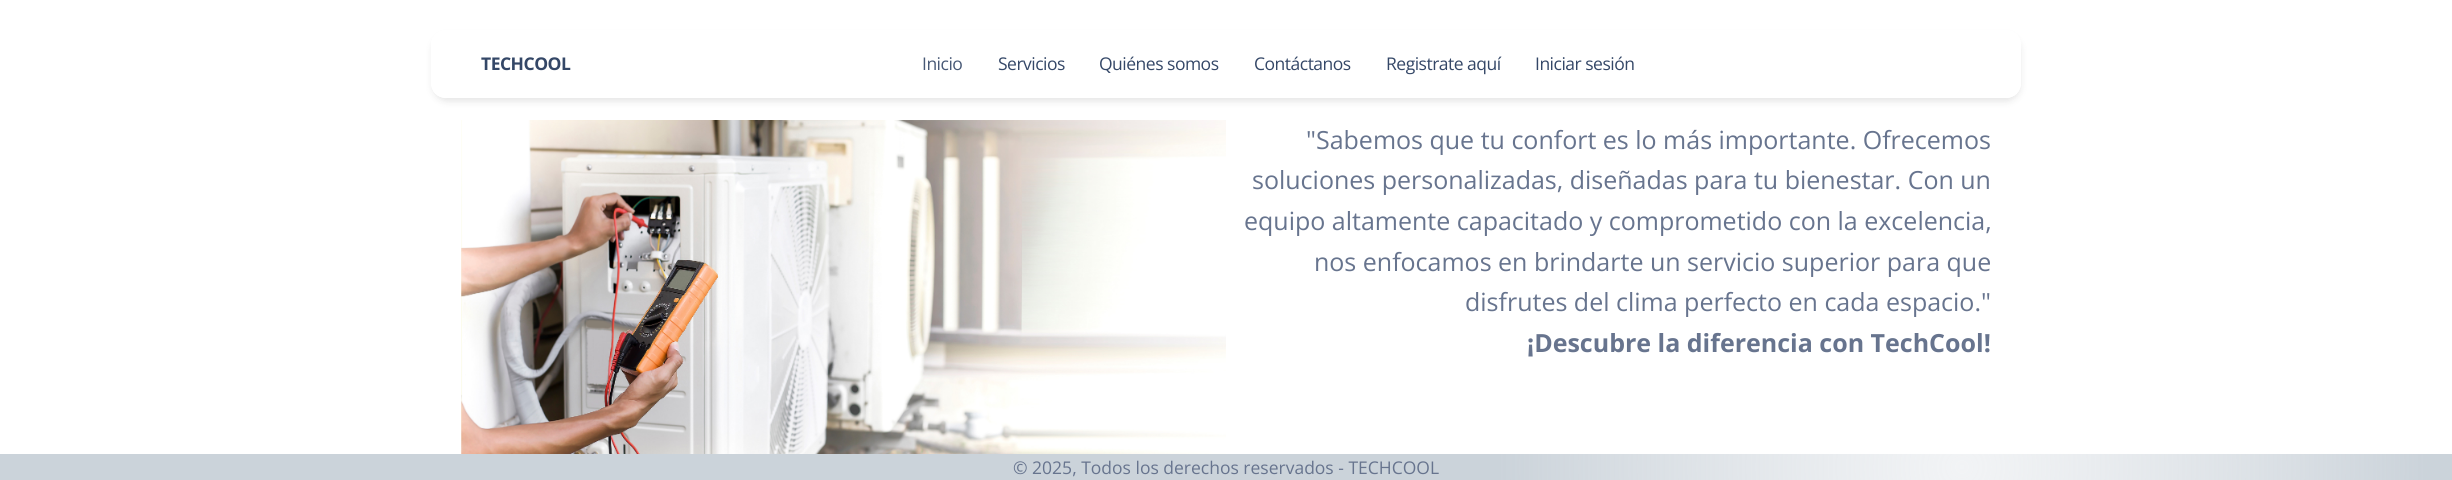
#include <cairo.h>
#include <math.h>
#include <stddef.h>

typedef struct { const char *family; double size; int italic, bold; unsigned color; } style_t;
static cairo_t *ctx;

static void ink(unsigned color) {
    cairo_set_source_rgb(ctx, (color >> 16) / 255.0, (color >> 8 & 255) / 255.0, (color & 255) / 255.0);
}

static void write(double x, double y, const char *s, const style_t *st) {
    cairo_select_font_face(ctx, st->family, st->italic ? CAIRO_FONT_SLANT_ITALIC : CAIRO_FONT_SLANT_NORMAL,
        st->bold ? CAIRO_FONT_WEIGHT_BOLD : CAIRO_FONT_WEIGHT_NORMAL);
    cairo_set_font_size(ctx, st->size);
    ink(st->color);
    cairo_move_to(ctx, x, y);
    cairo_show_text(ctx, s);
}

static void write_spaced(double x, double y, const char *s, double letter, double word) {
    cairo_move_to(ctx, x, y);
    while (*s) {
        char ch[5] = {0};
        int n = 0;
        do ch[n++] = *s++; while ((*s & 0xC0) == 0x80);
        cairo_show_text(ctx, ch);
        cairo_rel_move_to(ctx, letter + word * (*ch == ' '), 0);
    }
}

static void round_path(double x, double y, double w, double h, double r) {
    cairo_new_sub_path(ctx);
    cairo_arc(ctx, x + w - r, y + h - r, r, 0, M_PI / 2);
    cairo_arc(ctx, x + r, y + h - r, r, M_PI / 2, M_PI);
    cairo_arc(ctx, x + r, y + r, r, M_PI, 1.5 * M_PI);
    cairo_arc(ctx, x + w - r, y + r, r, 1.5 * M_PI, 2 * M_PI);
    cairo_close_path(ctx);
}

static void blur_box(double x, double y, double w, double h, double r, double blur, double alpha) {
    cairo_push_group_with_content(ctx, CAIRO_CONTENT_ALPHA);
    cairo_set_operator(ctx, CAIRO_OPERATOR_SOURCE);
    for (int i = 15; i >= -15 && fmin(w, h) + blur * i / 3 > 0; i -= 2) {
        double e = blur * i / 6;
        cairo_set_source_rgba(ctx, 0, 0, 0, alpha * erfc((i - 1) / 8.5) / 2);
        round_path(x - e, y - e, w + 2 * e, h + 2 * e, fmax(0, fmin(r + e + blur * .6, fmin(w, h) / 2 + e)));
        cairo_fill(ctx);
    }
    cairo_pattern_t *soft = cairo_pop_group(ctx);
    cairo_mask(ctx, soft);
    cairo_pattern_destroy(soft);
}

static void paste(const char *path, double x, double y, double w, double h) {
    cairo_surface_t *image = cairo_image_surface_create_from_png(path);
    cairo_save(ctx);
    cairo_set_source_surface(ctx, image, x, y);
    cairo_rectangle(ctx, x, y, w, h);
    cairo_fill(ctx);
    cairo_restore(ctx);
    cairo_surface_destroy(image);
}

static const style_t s1 = {"Open Sans", 25, 0, 0, 0x67748e};
static const style_t s2 = {"Open Sans", 25, 0, 1, 0x67748e};
static const style_t s3 = {"Open Sans", 17.5, 0, 0, 0x67748e};

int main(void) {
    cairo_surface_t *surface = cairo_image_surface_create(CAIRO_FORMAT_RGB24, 2452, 480);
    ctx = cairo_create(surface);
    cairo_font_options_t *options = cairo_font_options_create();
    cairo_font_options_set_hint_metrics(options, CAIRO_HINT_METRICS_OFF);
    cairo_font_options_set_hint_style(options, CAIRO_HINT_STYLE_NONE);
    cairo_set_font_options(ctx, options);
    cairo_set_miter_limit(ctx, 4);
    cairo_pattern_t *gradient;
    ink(0xffffff);
    cairo_paint(ctx);
    cairo_save(ctx);
    cairo_set_fill_rule(ctx, CAIRO_FILL_RULE_EVEN_ODD);
    cairo_new_path(ctx);
    cairo_move_to(ctx, 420, 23);
    cairo_line_to(ctx, 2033, 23);
    cairo_line_to(ctx, 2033, 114);
    cairo_line_to(ctx, 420, 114);
    cairo_close_path(ctx);
    cairo_move_to(ctx, 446, 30);
    cairo_line_to(ctx, 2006, 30);
    cairo_curve_to(ctx, 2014.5, 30, 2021, 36.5, 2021, 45);
    cairo_line_to(ctx, 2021, 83);
    cairo_curve_to(ctx, 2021, 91.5, 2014.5, 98, 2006, 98);
    cairo_line_to(ctx, 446, 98);
    cairo_curve_to(ctx, 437.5, 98, 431, 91.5, 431, 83);
    cairo_line_to(ctx, 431, 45);
    cairo_curve_to(ctx, 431, 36.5, 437.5, 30, 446, 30);
    cairo_close_path(ctx);
    cairo_clip(ctx);
    ink(0x141414);
    blur_box(433, 36, 1587, 65, 14, 4, 0.12);
    cairo_restore(ctx);
    cairo_set_source_rgba(ctx, 1, 1, 1, 0.8);
    round_path(431, 30, 1590, 68, 15);
    cairo_fill(ctx);
    cairo_select_font_face(ctx, "Open Sans", CAIRO_FONT_SLANT_NORMAL, CAIRO_FONT_WEIGHT_BOLD);
    cairo_set_font_size(ctx, 17.5);
    ink(0x344767);
    write_spaced(481, 70, "TECHCOOL", -0.5, 0);
    cairo_select_font_face(ctx, "Open Sans", CAIRO_FONT_SLANT_NORMAL, CAIRO_FONT_WEIGHT_NORMAL);
    ink(0x485976);
    write_spaced(922, 70, "Inicio", -0.5, 0);
    ink(0x344767);
    write_spaced(998, 70, "Servicios", -0.5, 0);
    write_spaced(1099, 70, "Quiénes somos", -0.5, 0);
    write_spaced(1254, 70, "Contáctanos", -0.5, 0);
    write_spaced(1386, 70, "Registrate aquí", -0.5, 0);
    write_spaced(1535, 70, "Iniciar sesión", -0.5, 0);
    paste("pic1.png", 461, 120, 765, 334);
    write(1306, 149, "\"Sabemos que tu confort es lo más importante. Ofrecemos", &s1);
    write(1252, 189, "soluciones personalizadas, diseñadas para tu bienestar. Con un", &s1);
    write(1244, 230, "equipo altamente capacitado y comprometido con la excelencia,", &s1);
    write(1314, 271, "nos enfocamos en brindarte un servicio superior para que", &s1);
    write(1465, 311, "disfrutes del clima perfecto en cada espacio.\"", &s1);
    write(1527, 352, "¡Descubre la diferencia con TechCool!", &s2);
    gradient = cairo_pattern_create_radial(1962, 467, 0, 1962, 467, 463);
    cairo_pattern_add_color_stop_rgba(gradient, 0, 0.914, 0.925, 0.937, 0.6);
    cairo_pattern_add_color_stop_rgba(gradient, 1, 0.796, 0.827, 0.855, 1);
    cairo_set_source(ctx, gradient);
    cairo_pattern_destroy(gradient);
    cairo_rectangle(ctx, 0, 454, 2452, 26);
    cairo_fill(ctx);
    write(1013, 474, "© 2025, Todos los derechos reservados - TECHCOOL", &s3);
    cairo_surface_write_to_png(surface, "screenshot.png");
    cairo_font_options_destroy(options);
    cairo_destroy(ctx);
    cairo_surface_destroy(surface);
    return 0;
}
